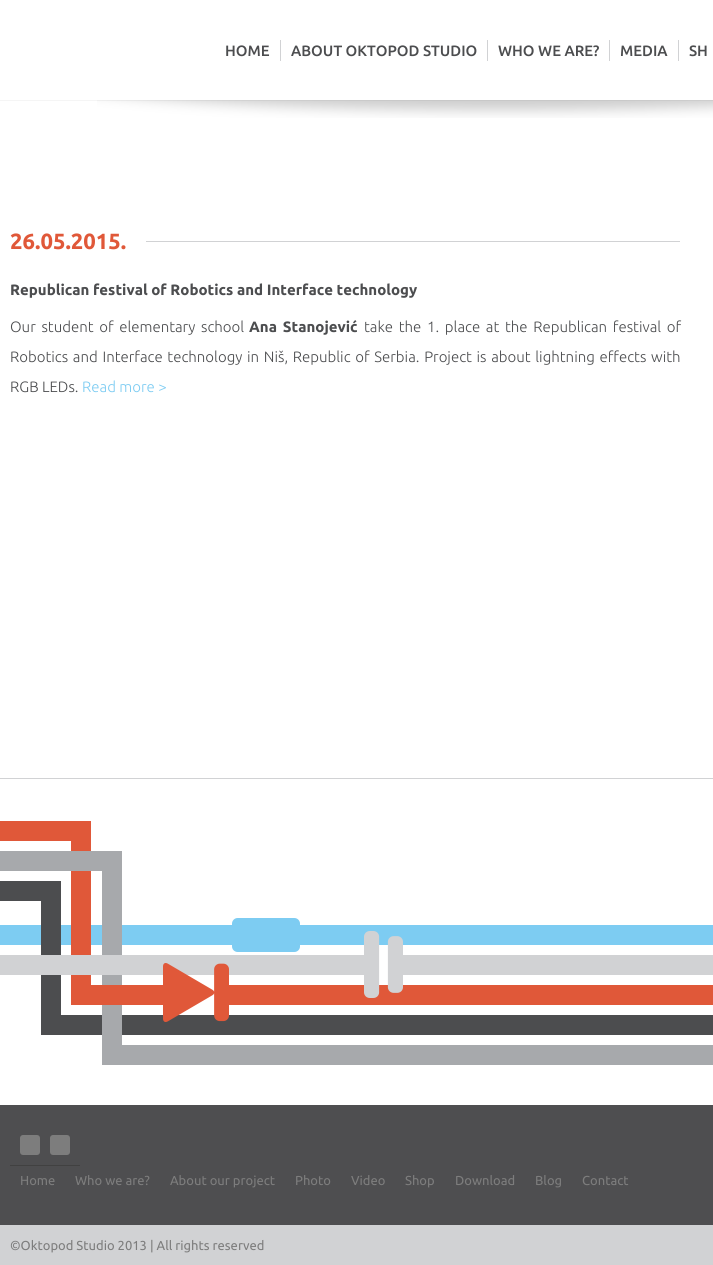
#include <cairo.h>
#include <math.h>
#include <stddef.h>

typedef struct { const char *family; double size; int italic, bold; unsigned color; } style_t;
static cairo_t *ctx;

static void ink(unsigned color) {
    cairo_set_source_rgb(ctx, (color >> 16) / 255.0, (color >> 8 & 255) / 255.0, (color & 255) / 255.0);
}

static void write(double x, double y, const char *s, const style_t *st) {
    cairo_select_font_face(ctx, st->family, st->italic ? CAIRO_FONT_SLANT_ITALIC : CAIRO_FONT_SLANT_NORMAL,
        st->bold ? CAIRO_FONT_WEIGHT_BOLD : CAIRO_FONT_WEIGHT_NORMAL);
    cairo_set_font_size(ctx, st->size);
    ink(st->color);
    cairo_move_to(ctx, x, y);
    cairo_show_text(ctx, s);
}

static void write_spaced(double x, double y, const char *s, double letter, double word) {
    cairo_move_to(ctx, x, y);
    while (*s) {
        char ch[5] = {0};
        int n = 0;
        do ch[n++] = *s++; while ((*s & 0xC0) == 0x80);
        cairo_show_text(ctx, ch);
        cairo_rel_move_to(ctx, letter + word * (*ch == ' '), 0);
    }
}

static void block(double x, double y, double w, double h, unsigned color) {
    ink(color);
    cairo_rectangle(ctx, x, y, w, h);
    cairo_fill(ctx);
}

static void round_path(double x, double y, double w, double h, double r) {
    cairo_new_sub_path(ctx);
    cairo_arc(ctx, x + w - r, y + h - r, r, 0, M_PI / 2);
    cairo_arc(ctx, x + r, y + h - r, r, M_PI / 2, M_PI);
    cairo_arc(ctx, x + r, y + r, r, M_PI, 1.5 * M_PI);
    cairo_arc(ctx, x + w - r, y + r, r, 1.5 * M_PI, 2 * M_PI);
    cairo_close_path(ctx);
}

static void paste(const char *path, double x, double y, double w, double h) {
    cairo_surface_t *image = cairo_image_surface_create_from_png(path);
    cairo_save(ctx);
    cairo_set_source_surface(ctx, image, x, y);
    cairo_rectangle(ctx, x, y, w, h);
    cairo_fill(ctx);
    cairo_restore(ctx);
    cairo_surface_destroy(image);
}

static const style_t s1 = {"Ubuntu Medium", 15, 0, 0, 0x4c4d4f};
static const style_t s2 = {"Ubuntu", 22, 0, 1, 0xe05839};
static const style_t s3 = {"Ubuntu", 15, 0, 1, 0x4c4d4f};
static const style_t s4 = {"Ubuntu Light", 15, 0, 0, 0x4c4d4f};
static const style_t s5 = {"Ubuntu Light", 15, 0, 0, 0x7dccf2};
static const style_t s6 = {"Ubuntu", 13, 0, 0, 0x7d7d7d};

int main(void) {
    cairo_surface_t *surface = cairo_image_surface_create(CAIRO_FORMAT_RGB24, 713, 1265);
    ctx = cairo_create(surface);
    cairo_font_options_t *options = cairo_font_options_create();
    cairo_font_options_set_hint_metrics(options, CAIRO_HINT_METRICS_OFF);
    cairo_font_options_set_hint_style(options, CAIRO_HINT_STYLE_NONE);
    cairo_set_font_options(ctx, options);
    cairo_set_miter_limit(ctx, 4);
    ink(0xffffff);
    cairo_paint(ctx);
    paste("pic1.png", 403, 925, 310, 140);
    block(0, 100, 713, 1, 0xf5f5f5);
    write(225, 56, "HOME", &s1);
    block(280, 40, 1, 21, 0xd1d2d4);
    write(291, 56, "ABOUT OKTOPOD STUDIO", &s1);
    block(487, 40, 1, 21, 0xd1d2d4);
    write(498, 56, "WHO WE ARE?", &s1);
    block(609, 40, 1, 21, 0xd1d2d4);
    write(620, 56, "MEDIA", &s1);
    block(678, 40, 1, 21, 0xd1d2d4);
    write(689, 56, "SH", &s1);
    paste("pic2.png", 97, 100, 616, 18);
    block(0, 778, 713, 1, 0xd1d2d4);
    block(146, 241, 534, 1, 0xd1d2d4);
    write(10, 249, "26.05.2015.", &s2);
    write(10, 295, "Republican festival of Robotics and Interface technology", &s3);
    cairo_select_font_face(ctx, "Ubuntu Light", CAIRO_FONT_SLANT_NORMAL, CAIRO_FONT_WEIGHT_NORMAL);
    write_spaced(10, 332, "Our student of elementary school", 0, 2.25);
    cairo_select_font_face(ctx, "Ubuntu", CAIRO_FONT_SLANT_NORMAL, CAIRO_FONT_WEIGHT_BOLD);
    write_spaced(249, 332, "Ana Stanojević", 0, 2.25);
    cairo_select_font_face(ctx, "Ubuntu Light", CAIRO_FONT_SLANT_NORMAL, CAIRO_FONT_WEIGHT_NORMAL);
    write_spaced(364, 332, "take the 1. place at the Republican festival of", 0, 2.25);
    write_spaced(10, 362, "Robotics and Interface technology in Niš, Republic of Serbia. Project is about lightning effects with", 0, 1.25);
    write(10, 392, "RGB LEDs.", &s4);
    write(82, 392, "Read more >", &s5);
    paste("pic3.png", 0, 821, 403, 244);
    block(0, 1105, 713, 120, 0x4e4e50);
    block(10, 1165, 70, 1, 0x414141);
    ink(0x7d7d7d);
    round_path(20, 1135, 20, 20, 3);
    cairo_fill(ctx);
    round_path(50, 1135, 20, 20, 3);
    cairo_fill(ctx);
    write(20, 1185, "Home", &s6);
    write(75, 1185, "Who we are?", &s6);
    write(170, 1185, "About our project", &s6);
    write(295, 1185, "Photo", &s6);
    write(351, 1185, "Video", &s6);
    write(405, 1185, "Shop", &s6);
    write(455, 1185, "Download", &s6);
    write(535, 1185, "Blog", &s6);
    write(582, 1185, "Contact", &s6);
    block(0, 1225, 713, 40, 0xd1d2d4);
    write(10, 1250, "©Oktopod Studio 2013 | All rights reserved", &s6);
    cairo_surface_write_to_png(surface, "screenshot.png");
    cairo_font_options_destroy(options);
    cairo_destroy(ctx);
    cairo_surface_destroy(surface);
    return 0;
}
